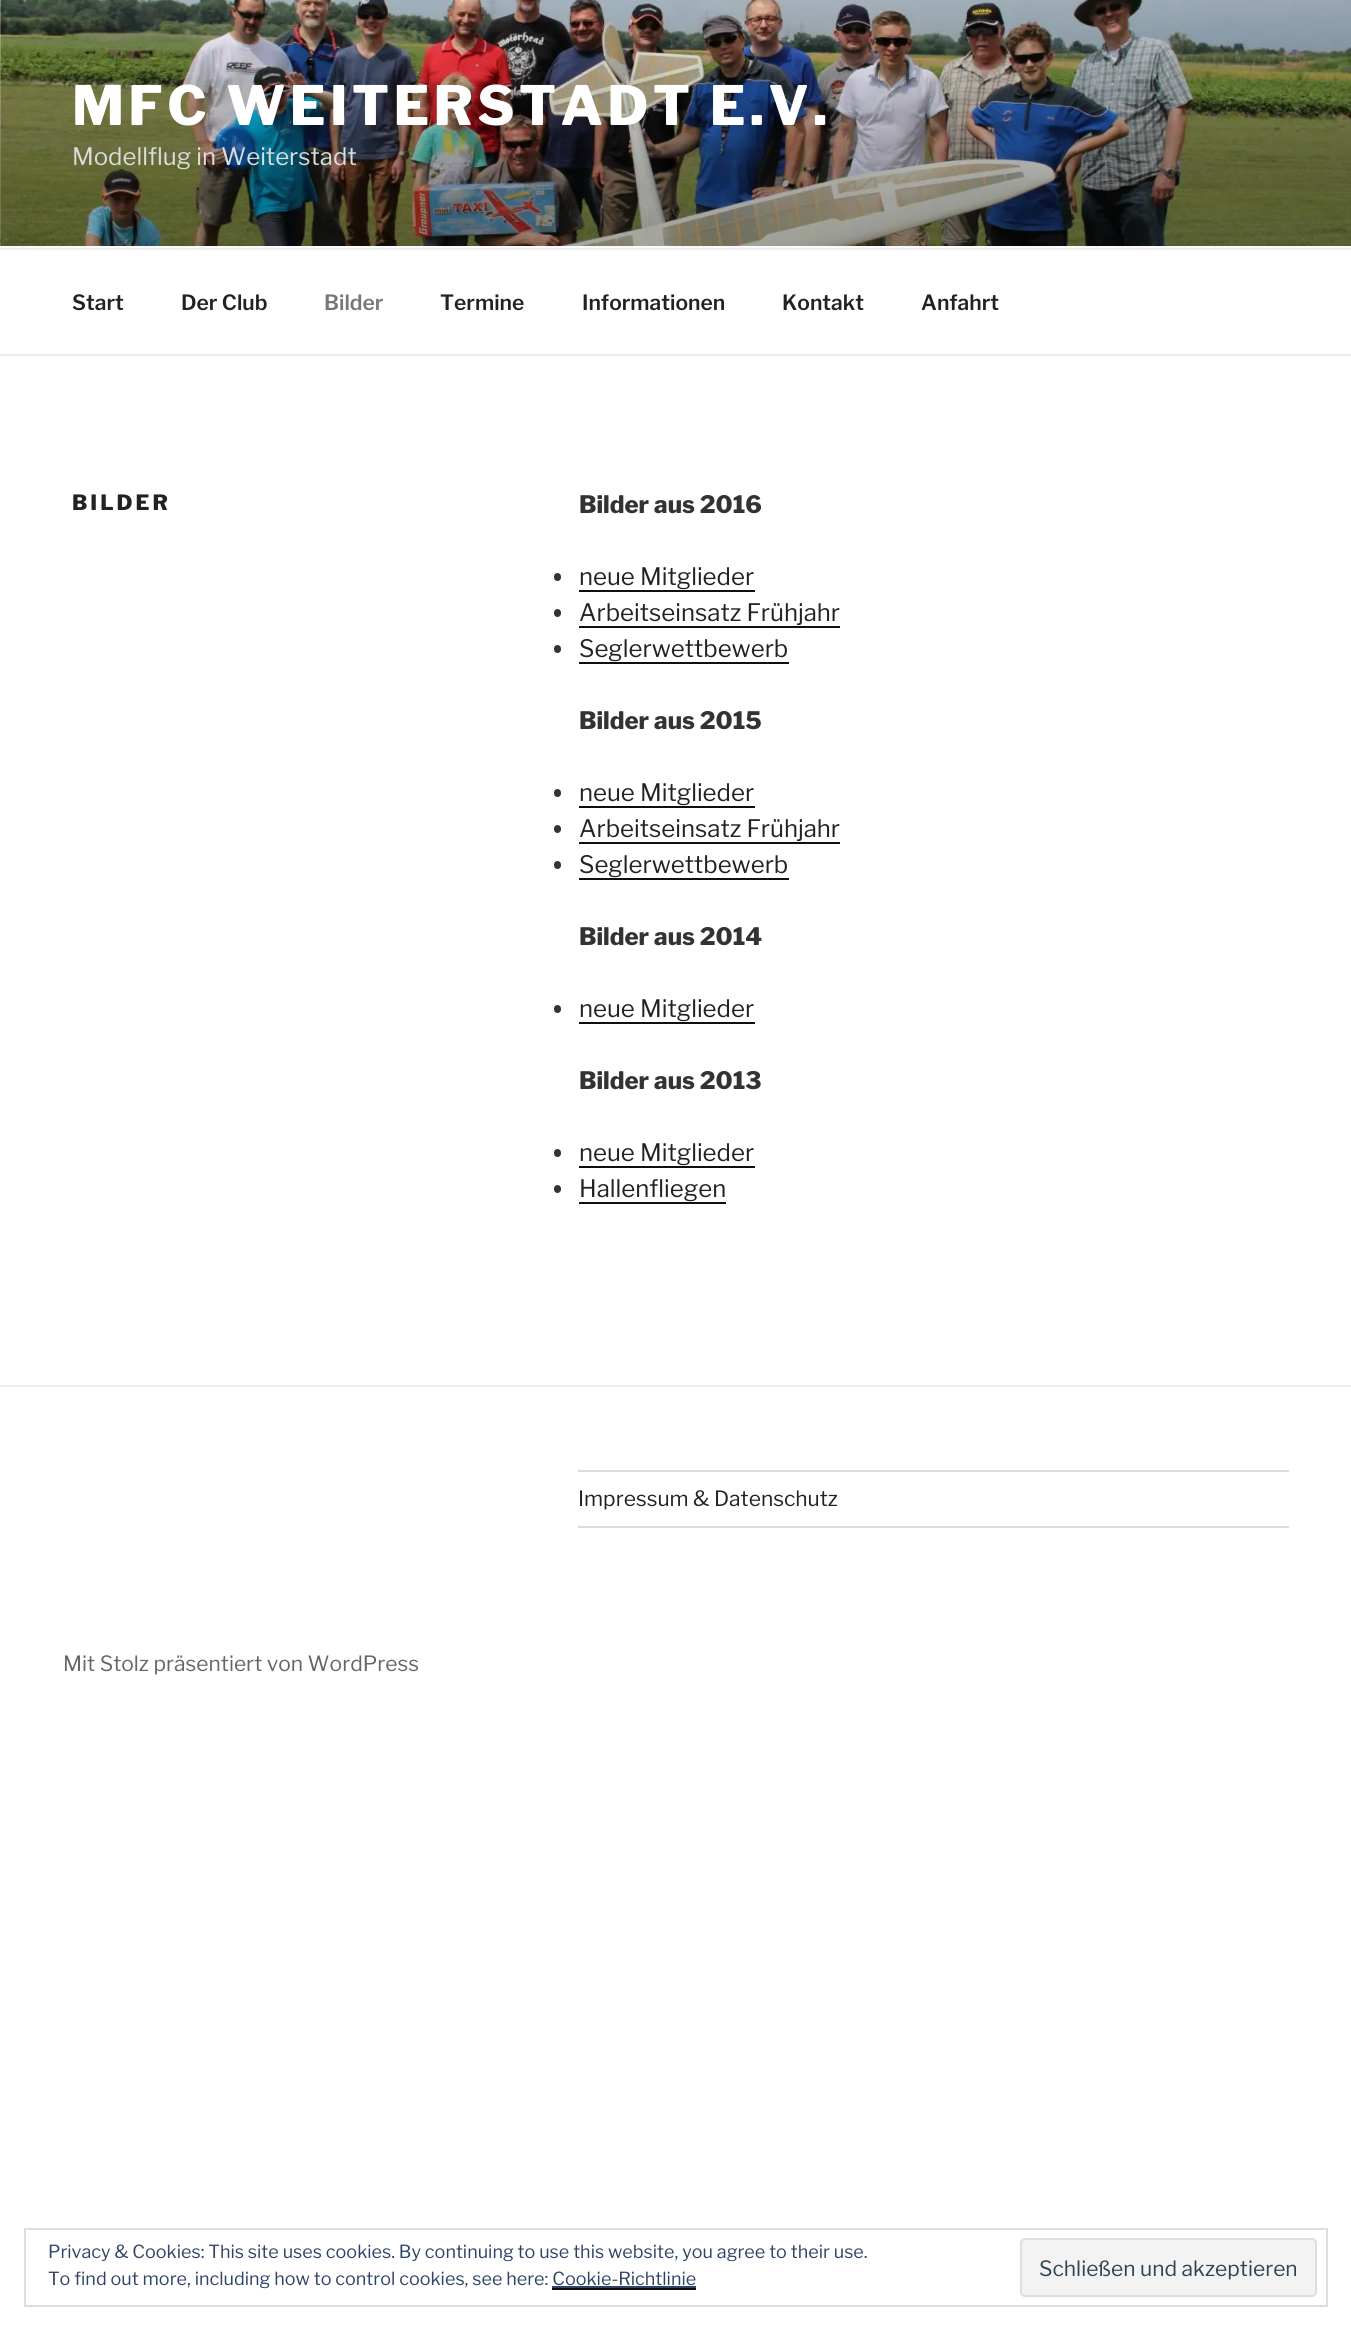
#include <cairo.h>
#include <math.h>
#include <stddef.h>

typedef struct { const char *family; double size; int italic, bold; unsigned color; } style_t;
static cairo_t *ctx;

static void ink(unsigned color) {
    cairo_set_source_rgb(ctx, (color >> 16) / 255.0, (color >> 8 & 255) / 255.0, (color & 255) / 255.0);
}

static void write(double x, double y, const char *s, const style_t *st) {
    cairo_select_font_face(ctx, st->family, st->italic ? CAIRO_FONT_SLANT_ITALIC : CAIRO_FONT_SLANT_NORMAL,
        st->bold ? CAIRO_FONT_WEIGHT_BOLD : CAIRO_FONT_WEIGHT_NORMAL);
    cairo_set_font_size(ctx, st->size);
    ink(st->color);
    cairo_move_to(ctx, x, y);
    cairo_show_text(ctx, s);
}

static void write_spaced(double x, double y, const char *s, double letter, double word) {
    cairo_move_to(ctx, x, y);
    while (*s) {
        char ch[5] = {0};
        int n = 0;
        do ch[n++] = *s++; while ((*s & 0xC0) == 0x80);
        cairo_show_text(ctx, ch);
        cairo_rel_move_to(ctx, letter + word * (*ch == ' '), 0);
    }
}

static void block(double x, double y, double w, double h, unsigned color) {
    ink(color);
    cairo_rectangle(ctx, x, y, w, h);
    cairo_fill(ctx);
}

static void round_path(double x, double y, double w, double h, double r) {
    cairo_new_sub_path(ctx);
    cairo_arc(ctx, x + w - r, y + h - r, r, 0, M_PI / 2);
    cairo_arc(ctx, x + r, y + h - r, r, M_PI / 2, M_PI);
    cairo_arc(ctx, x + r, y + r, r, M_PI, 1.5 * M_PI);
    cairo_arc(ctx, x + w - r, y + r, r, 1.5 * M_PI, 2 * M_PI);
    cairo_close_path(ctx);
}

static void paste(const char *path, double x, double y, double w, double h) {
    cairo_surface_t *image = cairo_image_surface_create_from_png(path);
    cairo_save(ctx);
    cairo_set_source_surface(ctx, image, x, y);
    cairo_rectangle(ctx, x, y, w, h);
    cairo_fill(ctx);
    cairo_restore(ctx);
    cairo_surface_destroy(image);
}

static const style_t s1 = {"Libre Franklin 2 Thin", 24, 0, 0, 0xdadddb};
static const style_t s2 = {"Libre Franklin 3 Thin", 21, 0, 0, 0x222222};
static const style_t s3 = {"Libre Franklin 3 Thin", 21, 0, 0, 0x767676};
static const style_t s4 = {"Libre Franklin Thin", 24, 0, 0, 0x333333};
static const style_t s5 = {"Libre Franklin 2 Thin", 24, 0, 0, 0x222222};
static const style_t s6 = {"Libre Franklin 2 Thin", 21, 0, 0, 0x222222};
static const style_t s7 = {"Libre Franklin 2 Thin", 21, 0, 0, 0x666666};
static const style_t s8 = {"Libre Franklin 2 Thin", 18, 0, 0, 0x2e4467};
static const style_t s9 = {"Libre Franklin 2 Thin", 21, 0, 0, 0x2e4453};

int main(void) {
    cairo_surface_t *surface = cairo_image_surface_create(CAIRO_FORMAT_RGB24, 1351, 2331);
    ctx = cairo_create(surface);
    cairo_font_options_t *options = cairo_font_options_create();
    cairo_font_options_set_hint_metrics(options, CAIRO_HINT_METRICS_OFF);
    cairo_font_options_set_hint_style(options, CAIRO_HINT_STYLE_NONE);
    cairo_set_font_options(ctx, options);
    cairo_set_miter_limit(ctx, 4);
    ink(0xffffff);
    cairo_paint(ctx);
    block(0, 246, 1351, 2, 0xfafafa);
    paste("pic1.png", 0, 0, 1351, 246);
    cairo_select_font_face(ctx, "Libre Franklin Thin", CAIRO_FONT_SLANT_NORMAL, CAIRO_FONT_WEIGHT_NORMAL);
    cairo_set_font_size(ctx, 54);
    ink(0xffffff);
    write_spaced(72, 125, "MFC WEITERSTADT E.V.", 4.3, 0);
    write(72, 165, "Modellflug in Weiterstadt", &s1);
    block(0, 248, 1351, 2, 0xeeeeee);
    block(0, 354, 1351, 2, 0xeeeeee);
    write(72, 310, "Start", &s2);
    write(181, 310, "Der Club", &s2);
    write(324, 310, "Bilder", &s3);
    write(440, 310, "Termine", &s2);
    write(582, 310, "Informationen", &s2);
    write(782, 310, "Kontakt", &s2);
    write(921, 310, "Anfahrt", &s2);
    cairo_select_font_face(ctx, "Libre Franklin Thin", CAIRO_FONT_SLANT_NORMAL, CAIRO_FONT_WEIGHT_NORMAL);
    write_spaced(72, 510, "BILDER", 3, 0);
    write(579, 513, "Bilder aus 2016", &s4);
    round_path(554, 573, 7, 8, 3.5);
    cairo_fill(ctx);
    write(579, 585, "neue Mitglieder", &s5);
    block(579, 590, 176, 2, 0x0f0f0f);
    ink(0x333333);
    round_path(554, 609, 7, 8, 3.5);
    cairo_fill(ctx);
    write(579, 621, "Arbeitseinsatz Frühjahr", &s5);
    block(579, 626, 261, 2, 0x0f0f0f);
    ink(0x333333);
    round_path(554, 645, 7, 8, 3.5);
    cairo_fill(ctx);
    write(579, 657, "Seglerwettbewerb", &s5);
    block(579, 662, 210, 2, 0x0f0f0f);
    write(579, 729, "Bilder aus 2015", &s4);
    round_path(554, 789, 7, 8, 3.5);
    cairo_fill(ctx);
    write(579, 801, "neue Mitglieder", &s5);
    block(579, 806, 176, 2, 0x0f0f0f);
    ink(0x333333);
    round_path(554, 825, 7, 8, 3.5);
    cairo_fill(ctx);
    write(579, 837, "Arbeitseinsatz Frühjahr", &s5);
    block(579, 842, 261, 2, 0x0f0f0f);
    ink(0x333333);
    round_path(554, 861, 7, 8, 3.5);
    cairo_fill(ctx);
    write(579, 873, "Seglerwettbewerb", &s5);
    block(579, 878, 210, 2, 0x0f0f0f);
    write(579, 945, "Bilder aus 2014", &s4);
    round_path(554, 1005, 7, 8, 3.5);
    cairo_fill(ctx);
    write(579, 1017, "neue Mitglieder", &s5);
    block(579, 1022, 176, 2, 0x0f0f0f);
    write(579, 1089, "Bilder aus 2013", &s4);
    round_path(554, 1149, 7, 8, 3.5);
    cairo_fill(ctx);
    write(579, 1161, "neue Mitglieder", &s5);
    block(579, 1166, 176, 2, 0x0f0f0f);
    ink(0x333333);
    round_path(554, 1185, 7, 8, 3.5);
    cairo_fill(ctx);
    write(579, 1197, "Hallenfliegen", &s5);
    block(579, 1202, 147, 2, 0x0f0f0f);
    block(0, 1385, 1351, 2, 0xeeeeee);
    block(578, 1470, 711, 2, 0xdddddd);
    block(578, 1526, 711, 2, 0xdddddd);
    write(578, 1506, "Impressum & Datenschutz", &s6);
    write(63, 1671, "Mit Stolz präsentiert von WordPress", &s7);
    cairo_rectangle(ctx, 25, 2229, 1302, 77);
    ink(0xdedede);
    cairo_stroke(ctx);
    write(48, 2258, "Privacy & Cookies: This site uses cookies. By continuing to use this website, you agree to their use.", &s8);
    write(48, 2285, "To find out more, including how to control cookies, see here: Cookie-Richtlinie", &s8);
    ink(0xf3f3f3);
    round_path(1021, 2239, 295, 57, 4);
    cairo_fill_preserve(ctx);
    ink(0xdedede);
    cairo_stroke(ctx);
    write(1039, 2276, "Schließen und akzeptieren", &s9);
    block(552, 2286, 144, 2, 0x2e4467);
    block(552, 2288, 144, 2, 0x0f0f0f);
    cairo_surface_write_to_png(surface, "screenshot.png");
    cairo_font_options_destroy(options);
    cairo_destroy(ctx);
    cairo_surface_destroy(surface);
    return 0;
}
